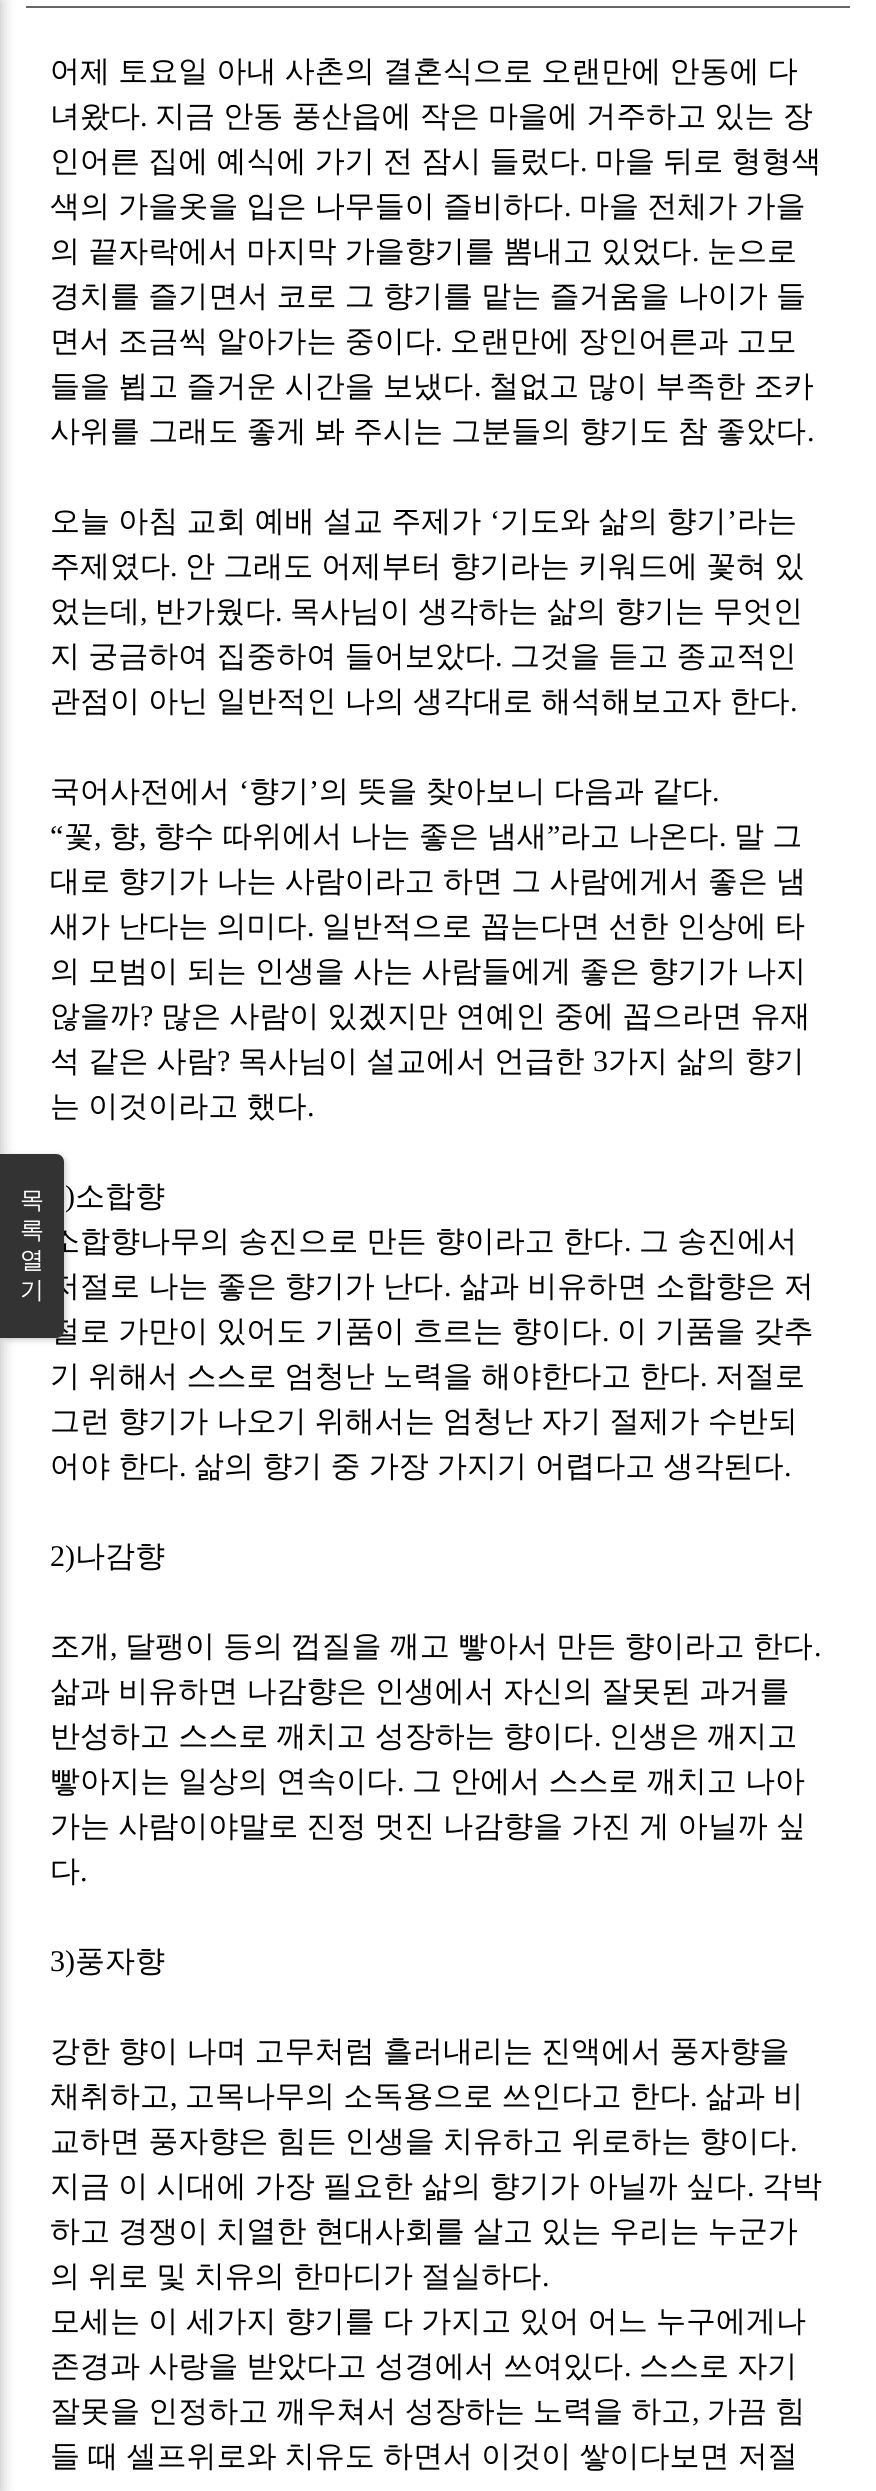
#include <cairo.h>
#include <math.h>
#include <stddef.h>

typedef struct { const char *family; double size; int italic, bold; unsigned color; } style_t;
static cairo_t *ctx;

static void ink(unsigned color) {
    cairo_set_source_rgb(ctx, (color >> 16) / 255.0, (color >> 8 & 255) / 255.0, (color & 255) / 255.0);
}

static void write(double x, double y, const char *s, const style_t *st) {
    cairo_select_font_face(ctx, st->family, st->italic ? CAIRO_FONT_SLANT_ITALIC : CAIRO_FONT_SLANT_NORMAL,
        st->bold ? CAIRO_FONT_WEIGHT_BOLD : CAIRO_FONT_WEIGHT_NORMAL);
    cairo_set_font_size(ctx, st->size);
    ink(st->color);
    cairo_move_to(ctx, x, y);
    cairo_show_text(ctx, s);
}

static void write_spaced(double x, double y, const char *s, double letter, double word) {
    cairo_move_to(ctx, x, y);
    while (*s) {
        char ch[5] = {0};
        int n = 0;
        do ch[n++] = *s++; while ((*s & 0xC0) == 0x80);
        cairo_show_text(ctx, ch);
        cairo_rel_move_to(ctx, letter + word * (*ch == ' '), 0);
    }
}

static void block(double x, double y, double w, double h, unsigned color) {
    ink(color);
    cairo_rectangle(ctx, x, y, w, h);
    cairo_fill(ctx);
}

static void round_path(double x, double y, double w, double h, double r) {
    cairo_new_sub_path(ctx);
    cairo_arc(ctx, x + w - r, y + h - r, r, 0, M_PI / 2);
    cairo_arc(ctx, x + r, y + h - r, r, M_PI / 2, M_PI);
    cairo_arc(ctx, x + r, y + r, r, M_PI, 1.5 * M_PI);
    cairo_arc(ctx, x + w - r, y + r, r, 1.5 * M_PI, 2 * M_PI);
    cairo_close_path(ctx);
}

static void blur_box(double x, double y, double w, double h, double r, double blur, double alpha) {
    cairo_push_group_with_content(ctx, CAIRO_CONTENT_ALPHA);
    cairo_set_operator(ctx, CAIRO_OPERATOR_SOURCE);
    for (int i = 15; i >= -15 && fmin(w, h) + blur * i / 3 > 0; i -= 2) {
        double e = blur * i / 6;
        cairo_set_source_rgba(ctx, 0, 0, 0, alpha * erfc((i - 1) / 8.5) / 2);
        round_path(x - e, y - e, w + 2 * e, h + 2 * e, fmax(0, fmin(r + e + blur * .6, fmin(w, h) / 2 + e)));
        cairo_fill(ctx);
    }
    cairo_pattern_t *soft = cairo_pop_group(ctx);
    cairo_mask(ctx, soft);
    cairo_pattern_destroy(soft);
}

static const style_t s1 = {"WenQuanYi Zen Hei Medium", 24, 0, 0, 0xffffff};
static const style_t s2 = {"WenQuanYi Zen Hei Medium", 30, 0, 0, 0x000000};
static const style_t s3 = {"Liberation Serif", 30, 0, 0, 0x000000};

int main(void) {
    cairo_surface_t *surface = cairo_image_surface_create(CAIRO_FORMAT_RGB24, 876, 2491);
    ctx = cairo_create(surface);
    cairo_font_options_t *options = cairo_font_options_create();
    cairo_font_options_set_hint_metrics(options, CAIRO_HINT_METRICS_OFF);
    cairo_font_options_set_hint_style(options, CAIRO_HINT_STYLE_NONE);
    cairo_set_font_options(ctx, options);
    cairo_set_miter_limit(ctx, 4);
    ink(0xffffff);
    cairo_paint(ctx);
    ink(0x000000);
    blur_box(-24, 0, 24, 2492, 0, 8, 0.3);
    blur_box(2, 1156, 64, 184, 8, 3, 0.2);
    cairo_select_font_face(ctx, "WenQuanYi Zen Hei Medium", CAIRO_FONT_SLANT_NORMAL, CAIRO_FONT_WEIGHT_NORMAL);
    cairo_set_font_size(ctx, 30);
    ink(0x000000);
    write_spaced(50, 1251, "소합향나무의 송진으로 만든 향이라고 한다", 0, -0.75);
    write_spaced(50, 1296, "저절로 나는 좋은 향기가 난다", 0, -0.75);
    write_spaced(50, 1341, "절로 가만이 있어도 기품이 흐르는 향이다", 0, -0.75);
    ink(0x333333);
    cairo_new_path(ctx);
    cairo_move_to(ctx, 0, 1154);
    cairo_line_to(ctx, 56, 1154);
    cairo_curve_to(ctx, 60.5, 1154, 64, 1157.5, 64, 1162);
    cairo_line_to(ctx, 64, 1330);
    cairo_curve_to(ctx, 64, 1334.5, 60.5, 1338, 56, 1338);
    cairo_line_to(ctx, 0, 1338);
    cairo_close_path(ctx);
    cairo_fill(ctx);
    write(20, 1208, "목", &s1);
    write(20, 1238, "록", &s1);
    write(20, 1268, "열", &s1);
    write(20, 1298, "기", &s1);
    block(26, 6, 824, 2, 0x666666);
    cairo_set_font_size(ctx, 30);
    ink(0x000000);
    write_spaced(50, 81, "어제 토요일 아내 사촌의 결혼식으로 오랜만에 안동에 다", 0, -0.75);
    write(50, 126, "녀왔다", &s2);
    write(140, 126, ".", &s3);
    cairo_select_font_face(ctx, "WenQuanYi Zen Hei Medium", CAIRO_FONT_SLANT_NORMAL, CAIRO_FONT_WEIGHT_NORMAL);
    write_spaced(155, 126, "지금 안동 풍산읍에 작은 마을에 거주하고 있는 장", 0, -0.75);
    write_spaced(50, 171, "인어른 집에 예식에 가기 전 잠시 들렀다", 0, -0.75);
    write(580, 171, ".", &s3);
    cairo_select_font_face(ctx, "WenQuanYi Zen Hei Medium", CAIRO_FONT_SLANT_NORMAL, CAIRO_FONT_WEIGHT_NORMAL);
    write_spaced(595, 171, "마을 뒤로 형형색", 0, -0.75);
    write_spaced(50, 216, "색의 가을옷을 입은 나무들이 즐비하다", 0, -0.75);
    write(564, 216, ".", &s3);
    cairo_select_font_face(ctx, "WenQuanYi Zen Hei Medium", CAIRO_FONT_SLANT_NORMAL, CAIRO_FONT_WEIGHT_NORMAL);
    write_spaced(579, 216, "마을 전체가 가을", 0, -0.75);
    write_spaced(50, 261, "의 끝자락에서 마지막 가을향기를 뽐내고 있었다", 0, -0.75);
    write(692, 261, ".", &s3);
    write(707, 261, "눈으로", &s2);
    write_spaced(50, 306, "경치를 즐기면서 코로 그 향기를 맡는 즐거움을 나이가 들", 0, -0.75);
    write_spaced(50, 351, "면서 조금씩 알아가는 중이다", 0, -0.75);
    write(435, 351, ".", &s3);
    cairo_select_font_face(ctx, "WenQuanYi Zen Hei Medium", CAIRO_FONT_SLANT_NORMAL, CAIRO_FONT_WEIGHT_NORMAL);
    write_spaced(450, 351, "오랜만에 장인어른과 고모", 0, -0.75);
    write_spaced(50, 396, "들을 뵙고 즐거운 시간을 보냈다", 0, -0.75);
    write(474, 396, ".", &s3);
    cairo_select_font_face(ctx, "WenQuanYi Zen Hei Medium", CAIRO_FONT_SLANT_NORMAL, CAIRO_FONT_WEIGHT_NORMAL);
    write_spaced(489, 396, "철없고 많이 부족한 조카", 0, -0.75);
    write_spaced(50, 441, "사위를 그래도 좋게 봐 주시는 그분들의 향기도 참 좋았다", 0, -0.75);
    write(807, 441, ".", &s3);
    cairo_select_font_face(ctx, "WenQuanYi Zen Hei Medium", CAIRO_FONT_SLANT_NORMAL, CAIRO_FONT_WEIGHT_NORMAL);
    write_spaced(50, 531, "오늘 아침 교회 예배 설교 주제가", 0, -0.75);
    write(490, 531, "‘", &s3);
    cairo_select_font_face(ctx, "WenQuanYi Zen Hei Medium", CAIRO_FONT_SLANT_NORMAL, CAIRO_FONT_WEIGHT_NORMAL);
    write_spaced(500, 531, "기도와 삶의 향기", 0, -0.75);
    write(727, 531, "’", &s3);
    write(737, 531, "라는", &s2);
    write(50, 576, "주제였다", &s2);
    write(170, 576, ".", &s3);
    cairo_select_font_face(ctx, "WenQuanYi Zen Hei Medium", CAIRO_FONT_SLANT_NORMAL, CAIRO_FONT_WEIGHT_NORMAL);
    write_spaced(185, 576, "안 그래도 어제부터 향기라는 키워드에 꽃혀 있", 0, -0.75);
    write(50, 621, "었는데", &s2);
    write(140, 621, ",", &s3);
    write(155, 621, "반가웠다", &s2);
    write(275, 621, ".", &s3);
    cairo_select_font_face(ctx, "WenQuanYi Zen Hei Medium", CAIRO_FONT_SLANT_NORMAL, CAIRO_FONT_WEIGHT_NORMAL);
    write_spaced(290, 621, "목사님이 생각하는 삶의 향기는 무엇인", 0, -0.75);
    write_spaced(50, 666, "지 궁금하여 집중하여 들어보았다", 0, -0.75);
    write(495, 666, ".", &s3);
    cairo_select_font_face(ctx, "WenQuanYi Zen Hei Medium", CAIRO_FONT_SLANT_NORMAL, CAIRO_FONT_WEIGHT_NORMAL);
    write_spaced(510, 666, "그것을 듣고 종교적인", 0, -0.75);
    write_spaced(50, 711, "관점이 아닌 일반적인 나의 생각대로 해석해보고자 한다", 0, -0.75);
    write(790, 711, ".", &s3);
    write(50, 801, "국어사전에서", &s2);
    write(239, 801, "‘", &s3);
    write(249, 801, "향기", &s2);
    write(309, 801, "’", &s3);
    cairo_select_font_face(ctx, "WenQuanYi Zen Hei Medium", CAIRO_FONT_SLANT_NORMAL, CAIRO_FONT_WEIGHT_NORMAL);
    write_spaced(319, 801, "의 뜻을 찾아보니 다음과 같다", 0, -0.75);
    write(712, 801, ".", &s3);
    write(50, 846, "“", &s3);
    write(64, 846, "꽃", &s2);
    write(109, 846, "향", &s2);
    write_spaced(154, 846, "향수 따위에서 나는 좋은 냄새", 0, -0.75);
    write(547, 846, "”", &s3);
    cairo_select_font_face(ctx, "WenQuanYi Zen Hei Medium", CAIRO_FONT_SLANT_NORMAL, CAIRO_FONT_WEIGHT_NORMAL);
    write_spaced(560, 846, "라고 나온다", 0, -0.75);
    write_spaced(734, 846, "말 그", 0, -0.75);
    write(94, 846, ",", &s3);
    write(139, 846, ",", &s3);
    write(719, 846, ".", &s3);
    cairo_select_font_face(ctx, "WenQuanYi Zen Hei Medium", CAIRO_FONT_SLANT_NORMAL, CAIRO_FONT_WEIGHT_NORMAL);
    write_spaced(50, 891, "대로 향기가 나는 사람이라고 하면 그 사람에게서 좋은 냄", 0, -0.75);
    write_spaced(50, 936, "새가 난다는 의미다", 0, -0.75);
    write(307, 936, ".", &s3);
    cairo_select_font_face(ctx, "WenQuanYi Zen Hei Medium", CAIRO_FONT_SLANT_NORMAL, CAIRO_FONT_WEIGHT_NORMAL);
    write_spaced(322, 936, "일반적으로 꼽는다면 선한 인상에 타", 0, -0.75);
    write_spaced(50, 981, "의 모범이 되는 인생을 사는 사람들에게 좋은 향기가 나지", 0, -0.75);
    write(50, 1026, "않을까", &s2);
    write(140, 1026, "?", &s3);
    cairo_select_font_face(ctx, "WenQuanYi Zen Hei Medium", CAIRO_FONT_SLANT_NORMAL, CAIRO_FONT_WEIGHT_NORMAL);
    write_spaced(161, 1026, "많은 사람이 있겠지만 연예인 중에 꼽으라면 유재", 0, -0.75);
    write_spaced(50, 1071, "석 같은 사람", 0, -0.75);
    write(217, 1071, "?", &s3);
    cairo_select_font_face(ctx, "WenQuanYi Zen Hei Medium", CAIRO_FONT_SLANT_NORMAL, CAIRO_FONT_WEIGHT_NORMAL);
    write_spaced(238, 1071, "목사님이 설교에서 언급한", 0, -0.75);
    write(593, 1071, "3", &s3);
    cairo_select_font_face(ctx, "WenQuanYi Zen Hei Medium", CAIRO_FONT_SLANT_NORMAL, CAIRO_FONT_WEIGHT_NORMAL);
    write_spaced(608, 1071, "가지 삶의 향기", 0, -0.75);
    write_spaced(50, 1116, "는 이것이라고 했다", 0, -0.75);
    write(307, 1116, ".", &s3);
    write(65, 1206, ")", &s3);
    write(75, 1206, "소합향", &s2);
    write(624, 1251, ".", &s3);
    cairo_select_font_face(ctx, "WenQuanYi Zen Hei Medium", CAIRO_FONT_SLANT_NORMAL, CAIRO_FONT_WEIGHT_NORMAL);
    write_spaced(639, 1251, "그 송진에서", 0, -0.75);
    write(444, 1296, ".", &s3);
    cairo_select_font_face(ctx, "WenQuanYi Zen Hei Medium", CAIRO_FONT_SLANT_NORMAL, CAIRO_FONT_WEIGHT_NORMAL);
    write_spaced(459, 1296, "삶과 비유하면 소합향은 저", 0, -0.75);
    write(602, 1341, ".", &s3);
    cairo_select_font_face(ctx, "WenQuanYi Zen Hei Medium", CAIRO_FONT_SLANT_NORMAL, CAIRO_FONT_WEIGHT_NORMAL);
    write_spaced(617, 1341, "이 기품을 갖추", 0, -0.75);
    write_spaced(50, 1386, "기 위해서 스스로 엄청난 노력을 해야한다고 한다", 0, -0.75);
    write(700, 1386, ".", &s3);
    write(715, 1386, "저절로", &s2);
    write_spaced(50, 1431, "그런 향기가 나오기 위해서는 엄청난 자기 절제가 수반되", 0, -0.75);
    write_spaced(50, 1476, "어야 한다", 0, -0.75);
    write(179, 1476, ".", &s3);
    cairo_select_font_face(ctx, "WenQuanYi Zen Hei Medium", CAIRO_FONT_SLANT_NORMAL, CAIRO_FONT_WEIGHT_NORMAL);
    write_spaced(194, 1476, "삶의 향기 중 가장 가지기 어렵다고 생각된다", 0, -0.75);
    write(784, 1476, ".", &s3);
    write(50, 1566, "2)", &s3);
    write(75, 1566, "나감향", &s2);
    write(50, 1656, "조개", &s2);
    write(110, 1656, ",", &s3);
    cairo_select_font_face(ctx, "WenQuanYi Zen Hei Medium", CAIRO_FONT_SLANT_NORMAL, CAIRO_FONT_WEIGHT_NORMAL);
    write_spaced(125, 1656, "달팽이 등의 껍질을 깨고 빻아서 만든 향이라고 한다", 0, -0.75);
    write(814, 1656, ".", &s3);
    cairo_select_font_face(ctx, "WenQuanYi Zen Hei Medium", CAIRO_FONT_SLANT_NORMAL, CAIRO_FONT_WEIGHT_NORMAL);
    write_spaced(50, 1701, "삶과 비유하면 나감향은 인생에서 자신의 잘못된 과거를", 0, -0.75);
    write_spaced(50, 1746, "반성하고 스스로 깨치고 성장하는 향이다", 0, -0.75);
    write(594, 1746, ".", &s3);
    cairo_select_font_face(ctx, "WenQuanYi Zen Hei Medium", CAIRO_FONT_SLANT_NORMAL, CAIRO_FONT_WEIGHT_NORMAL);
    write_spaced(609, 1746, "인생은 깨지고", 0, -0.75);
    write_spaced(50, 1791, "빻아지는 일상의 연속이다", 0, -0.75);
    write(397, 1791, ".", &s3);
    cairo_select_font_face(ctx, "WenQuanYi Zen Hei Medium", CAIRO_FONT_SLANT_NORMAL, CAIRO_FONT_WEIGHT_NORMAL);
    write_spaced(412, 1791, "그 안에서 스스로 깨치고 나아", 0, -0.75);
    write_spaced(50, 1836, "가는 사람이야말로 진정 멋진 나감향을 가진 게 아닐까 싶", 0, -0.75);
    write(50, 1881, "다", &s2);
    write(80, 1881, ".", &s3);
    write(50, 1971, "3)", &s3);
    write(75, 1971, "풍자향", &s2);
    write_spaced(50, 2061, "강한 향이 나며 고무처럼 흘러내리는 진액에서 풍자향을", 0, -0.75);
    write(50, 2106, "채취하고", &s2);
    write(170, 2106, ",", &s3);
    cairo_select_font_face(ctx, "WenQuanYi Zen Hei Medium", CAIRO_FONT_SLANT_NORMAL, CAIRO_FONT_WEIGHT_NORMAL);
    write_spaced(185, 2106, "고목나무의 소독용으로 쓰인다고 한다", 0, -0.75);
    write(690, 2106, ".", &s3);
    cairo_select_font_face(ctx, "WenQuanYi Zen Hei Medium", CAIRO_FONT_SLANT_NORMAL, CAIRO_FONT_WEIGHT_NORMAL);
    write_spaced(705, 2106, "삶과 비", 0, -0.75);
    write_spaced(50, 2151, "교하면 풍자향은 힘든 인생을 치유하고 위로하는 향이다", 0, -0.75);
    write(790, 2151, ".", &s3);
    cairo_select_font_face(ctx, "WenQuanYi Zen Hei Medium", CAIRO_FONT_SLANT_NORMAL, CAIRO_FONT_WEIGHT_NORMAL);
    write_spaced(50, 2196, "지금 이 시대에 가장 필요한 삶의 향기가 아닐까 싶다", 0, -0.75);
    write(747, 2196, ".", &s3);
    write(762, 2196, "각박", &s2);
    write_spaced(50, 2241, "하고 경쟁이 치열한 현대사회를 살고 있는 우리는 누군가", 0, -0.75);
    write_spaced(50, 2286, "의 위로 및 치유의 한마디가 절실하다", 0, -0.75);
    write(542, 2286, ".", &s3);
    cairo_select_font_face(ctx, "WenQuanYi Zen Hei Medium", CAIRO_FONT_SLANT_NORMAL, CAIRO_FONT_WEIGHT_NORMAL);
    write_spaced(50, 2331, "모세는 이 세가지 향기를 다 가지고 있어 어느 누구에게나", 0, -0.75);
    write_spaced(50, 2376, "존경과 사랑을 받았다고 성경에서 쓰여있다", 0, -0.75);
    write(624, 2376, ".", &s3);
    cairo_select_font_face(ctx, "WenQuanYi Zen Hei Medium", CAIRO_FONT_SLANT_NORMAL, CAIRO_FONT_WEIGHT_NORMAL);
    write_spaced(639, 2376, "스스로 자기", 0, -0.75);
    write_spaced(50, 2421, "잘못을 인정하고 깨우쳐서 성장하는 노력을 하고", 0, -0.75);
    write(692, 2421, ",", &s3);
    cairo_select_font_face(ctx, "WenQuanYi Zen Hei Medium", CAIRO_FONT_SLANT_NORMAL, CAIRO_FONT_WEIGHT_NORMAL);
    write_spaced(707, 2421, "가끔 힘", 0, -0.75);
    write_spaced(50, 2466, "들 때 셀프위로와 치유도 하면서 이것이 쌓이다보면 저절", 0, -0.75);
    cairo_surface_write_to_png(surface, "screenshot.png");
    cairo_font_options_destroy(options);
    cairo_destroy(ctx);
    cairo_surface_destroy(surface);
    return 0;
}
